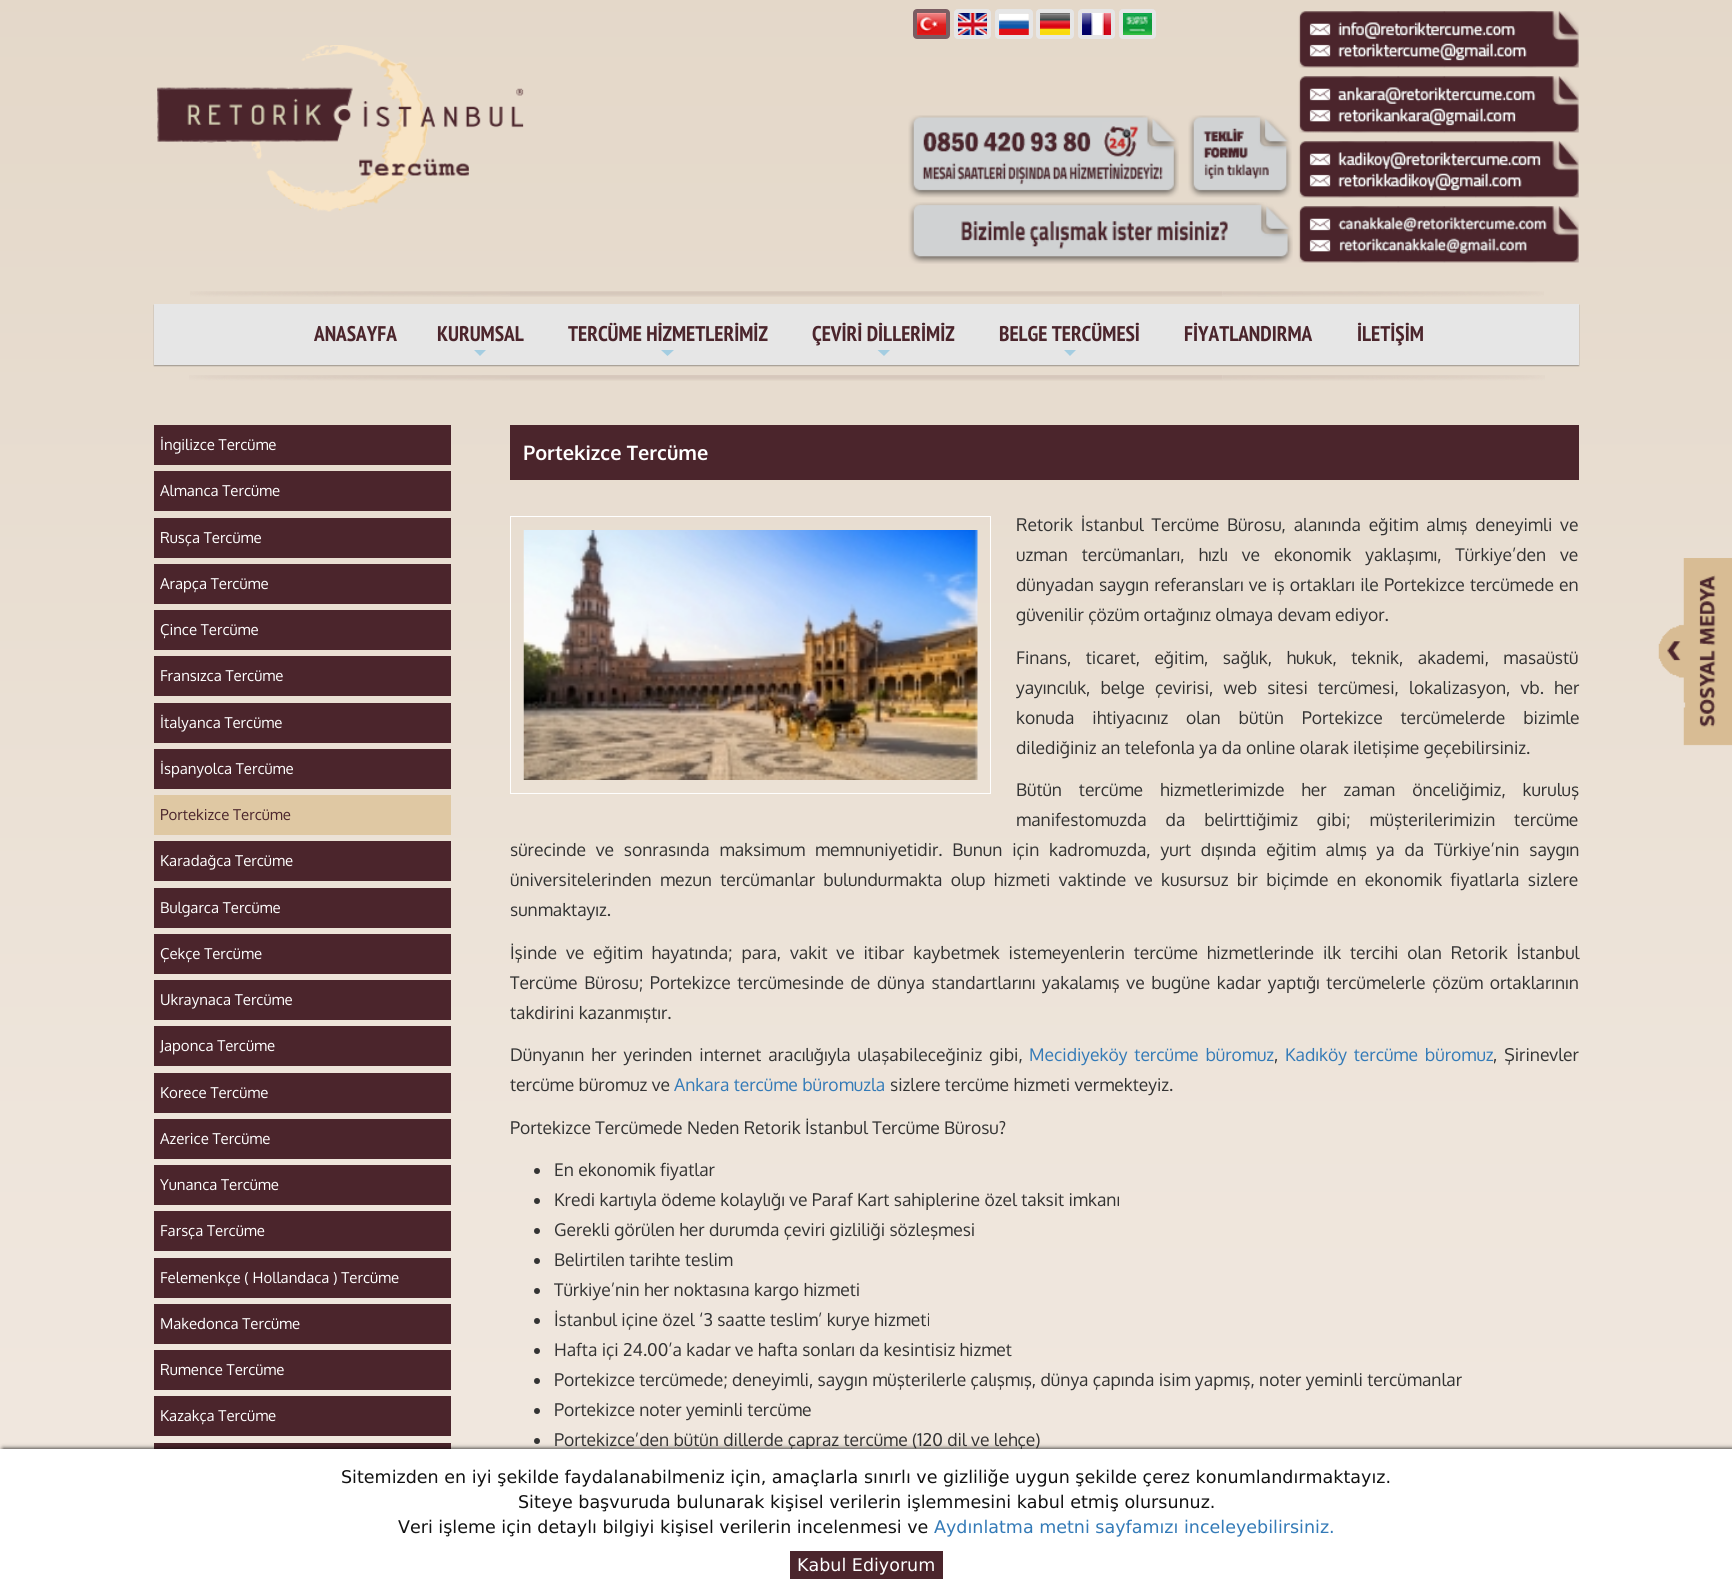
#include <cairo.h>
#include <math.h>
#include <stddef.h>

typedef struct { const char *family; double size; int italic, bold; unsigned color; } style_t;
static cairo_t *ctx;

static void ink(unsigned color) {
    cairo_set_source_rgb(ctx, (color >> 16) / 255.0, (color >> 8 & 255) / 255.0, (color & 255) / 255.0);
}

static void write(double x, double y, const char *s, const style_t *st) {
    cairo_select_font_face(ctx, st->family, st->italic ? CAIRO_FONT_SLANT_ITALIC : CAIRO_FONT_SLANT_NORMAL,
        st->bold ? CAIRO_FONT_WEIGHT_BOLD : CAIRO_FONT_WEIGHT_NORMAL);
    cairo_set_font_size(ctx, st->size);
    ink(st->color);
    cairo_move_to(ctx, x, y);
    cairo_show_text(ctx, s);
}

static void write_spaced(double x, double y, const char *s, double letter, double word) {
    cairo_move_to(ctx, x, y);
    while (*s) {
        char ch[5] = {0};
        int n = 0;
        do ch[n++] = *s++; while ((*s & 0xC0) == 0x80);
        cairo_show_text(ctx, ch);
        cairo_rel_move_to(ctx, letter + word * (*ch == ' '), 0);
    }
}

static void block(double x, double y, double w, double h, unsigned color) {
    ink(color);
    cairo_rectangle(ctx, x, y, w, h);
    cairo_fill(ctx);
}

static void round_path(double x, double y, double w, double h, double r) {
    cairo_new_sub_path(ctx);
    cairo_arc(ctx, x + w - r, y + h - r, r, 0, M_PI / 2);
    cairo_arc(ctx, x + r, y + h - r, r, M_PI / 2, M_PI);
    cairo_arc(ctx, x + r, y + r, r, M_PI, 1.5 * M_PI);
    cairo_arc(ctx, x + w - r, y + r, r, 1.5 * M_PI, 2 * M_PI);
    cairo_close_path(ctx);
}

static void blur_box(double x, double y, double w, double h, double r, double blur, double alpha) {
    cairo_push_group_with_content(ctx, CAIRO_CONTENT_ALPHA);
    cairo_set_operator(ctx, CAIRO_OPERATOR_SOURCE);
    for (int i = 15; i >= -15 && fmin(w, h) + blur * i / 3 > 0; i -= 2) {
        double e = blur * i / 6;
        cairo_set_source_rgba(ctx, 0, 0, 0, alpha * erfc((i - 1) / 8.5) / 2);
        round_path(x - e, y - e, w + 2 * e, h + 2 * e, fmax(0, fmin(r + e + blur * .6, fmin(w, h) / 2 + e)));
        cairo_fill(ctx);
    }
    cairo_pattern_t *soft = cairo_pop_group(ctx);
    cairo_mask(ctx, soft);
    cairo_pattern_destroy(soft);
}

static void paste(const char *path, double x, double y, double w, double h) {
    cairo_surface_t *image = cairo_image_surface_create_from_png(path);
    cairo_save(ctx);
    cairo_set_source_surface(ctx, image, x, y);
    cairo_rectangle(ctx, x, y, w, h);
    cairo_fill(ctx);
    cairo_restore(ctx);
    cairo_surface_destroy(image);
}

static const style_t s1 = {"PT Sans Narrow", 21.25, 0, 1, 0x4b252c};
static const style_t s2 = {"Oxygen", 15, 0, 0, 0xffffff};
static const style_t s3 = {"Oxygen", 15, 0, 0, 0x4b252c};
static const style_t s4 = {"Oxygen", 20, 0, 1, 0xffffff};
static const style_t s5 = {"Oxygen", 17.5, 0, 0, 0x333333};
static const style_t s6 = {"Oxygen", 17.5, 0, 0, 0x337ab7};
static const style_t s7 = {"DejaVu Sans", 17.5, 0, 0, 0x111111};
static const style_t s8 = {"DejaVu Sans", 17.5, 0, 0, 0x337ab7};
static const style_t s9 = {"DejaVu Sans", 17.5, 0, 0, 0xffffff};

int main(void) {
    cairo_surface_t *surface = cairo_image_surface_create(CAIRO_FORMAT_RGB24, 1732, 1593);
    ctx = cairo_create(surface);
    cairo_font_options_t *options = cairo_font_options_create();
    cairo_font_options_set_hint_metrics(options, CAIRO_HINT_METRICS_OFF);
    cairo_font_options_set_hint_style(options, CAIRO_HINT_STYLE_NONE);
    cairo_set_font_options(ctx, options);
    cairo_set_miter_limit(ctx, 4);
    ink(0xffffff);
    cairo_paint(ctx);
    paste("pic1.png", 0, 0, 1732, 1449);
    paste("pic2.png", 157, 45, 367, 167);
    paste("pic3.png", 917, 13, 29, 22);
    round_path(915, 11, 33, 26, 2);
    ink(0x7a5d62);
    cairo_set_line_width(ctx, 4);
    cairo_stroke(ctx);
    paste("pic4.png", 958, 13, 29, 22);
    round_path(956, 11, 33, 26, 2);
    ink(0xe6e6e6);
    cairo_stroke(ctx);
    paste("pic5.png", 999, 13, 30, 22);
    round_path(997, 11, 34, 26, 2);
    cairo_stroke(ctx);
    paste("pic6.png", 1040, 13, 30, 22);
    round_path(1038, 11, 34, 26, 2);
    cairo_stroke(ctx);
    paste("pic7.png", 1082, 13, 29, 22);
    round_path(1080, 11, 33, 26, 2);
    cairo_stroke(ctx);
    paste("pic8.png", 1123, 13, 29, 22);
    round_path(1121, 11, 33, 26, 2);
    cairo_stroke(ctx);
    paste("pic9.png", 908, 115, 271, 83);
    paste("pic10.png", 1188, 115, 104, 83);
    paste("pic11.png", 908, 202, 385, 62);
    paste("pic12.png", 1298, 11, 281, 57);
    paste("pic13.png", 1298, 76, 281, 57);
    paste("pic14.png", 1298, 141, 281, 57);
    paste("pic15.png", 1298, 206, 281, 57);
    paste("pic16.png", 190, 291, 320, 6);
    paste("pic17.png", 510, 291, 713, 6);
    paste("pic18.png", 1222, 291, 322, 6);
    ink(0x000000);
    blur_box(154, 305, 1425, 61, 0, 0.5, 0.3);
    block(154, 304, 1425, 61, 0xe6e6e6);
    write(314, 341, "ANASAYFA", &s1);
    write(437, 341, "KURUMSAL", &s1);
    ink(0xa4cde1);
    cairo_new_path(ctx);
    cairo_move_to(ctx, 474, 350);
    cairo_line_to(ctx, 486, 350);
    cairo_line_to(ctx, 480, 356);
    cairo_close_path(ctx);
    cairo_fill(ctx);
    write(568, 341, "TERCÜME HİZMETLERİMİZ", &s1);
    ink(0xa4cde1);
    cairo_new_path(ctx);
    cairo_move_to(ctx, 661, 350);
    cairo_line_to(ctx, 674, 350);
    cairo_line_to(ctx, 667.5, 356);
    cairo_close_path(ctx);
    cairo_fill(ctx);
    write(812, 341, "ÇEVİRİ DİLLERİMİZ", &s1);
    ink(0xa4cde1);
    cairo_new_path(ctx);
    cairo_move_to(ctx, 877.5, 350);
    cairo_line_to(ctx, 890, 350);
    cairo_line_to(ctx, 884, 356);
    cairo_close_path(ctx);
    cairo_fill(ctx);
    write(999, 341, "BELGE TERCÜMESİ", &s1);
    ink(0xa4cde1);
    cairo_new_path(ctx);
    cairo_move_to(ctx, 1064, 350);
    cairo_line_to(ctx, 1076, 350);
    cairo_line_to(ctx, 1070, 356);
    cairo_close_path(ctx);
    cairo_fill(ctx);
    write(1184, 341, "FİYATLANDIRMA", &s1);
    write(1357, 341, "İLETİŞİM", &s1);
    paste("pic19.png", 189, 375, 321, 6);
    paste("pic20.png", 510, 375, 713, 6);
    paste("pic21.png", 1222, 375, 323, 6);
    block(154, 425, 297, 40, 0x4b252c);
    write(160, 450, "İngilizce Tercüme", &s2);
    block(154, 471, 297, 40, 0x4b252c);
    write(160, 496, "Almanca Tercüme", &s2);
    block(154, 518, 297, 40, 0x4b252c);
    write(160, 543, "Rusça Tercüme", &s2);
    block(154, 564, 297, 40, 0x4b252c);
    write(160, 589, "Arapça Tercüme", &s2);
    block(154, 610, 297, 40, 0x4b252c);
    write(160, 635, "Çince Tercüme", &s2);
    block(154, 656, 297, 40, 0x4b252c);
    write(160, 681, "Fransızca Tercüme", &s2);
    block(154, 703, 297, 40, 0x4b252c);
    write(160, 728, "İtalyanca Tercüme", &s2);
    block(154, 749, 297, 40, 0x4b252c);
    write(160, 774, "İspanyolca Tercüme", &s2);
    block(154, 795, 297, 40, 0xdfc8a3);
    write(160, 820, "Portekizce Tercüme", &s3);
    block(154, 841, 297, 40, 0x4b252c);
    write(160, 866, "Karadağca Tercüme", &s2);
    block(154, 888, 297, 40, 0x4b252c);
    write(160, 913, "Bulgarca Tercüme", &s2);
    block(154, 934, 297, 40, 0x4b252c);
    write(160, 959, "Çekçe Tercüme", &s2);
    block(154, 980, 297, 40, 0x4b252c);
    write(160, 1005, "Ukraynaca Tercüme", &s2);
    block(154, 1026, 297, 40, 0x4b252c);
    write(160, 1051, "Japonca Tercüme", &s2);
    block(154, 1073, 297, 40, 0x4b252c);
    write(160, 1098, "Korece Tercüme", &s2);
    block(154, 1119, 297, 40, 0x4b252c);
    write(160, 1144, "Azerice Tercüme", &s2);
    block(154, 1165, 297, 40, 0x4b252c);
    write(160, 1190, "Yunanca Tercüme", &s2);
    block(154, 1211, 297, 40, 0x4b252c);
    write(160, 1236, "Farsça Tercüme", &s2);
    block(154, 1258, 297, 40, 0x4b252c);
    write(160, 1283, "Felemenkçe ( Hollandaca ) Tercüme", &s2);
    block(154, 1304, 297, 40, 0x4b252c);
    write(160, 1329, "Makedonca Tercüme", &s2);
    block(154, 1350, 297, 40, 0x4b252c);
    write(160, 1375, "Rumence Tercüme", &s2);
    block(154, 1396, 297, 40, 0x4b252c);
    write(160, 1421, "Kazakça Tercüme", &s2);
    block(154, 1443, 297, 6, 0x4b252c);
    block(510, 425, 1069, 55, 0x4b252c);
    write(523, 460, "Portekizce Tercüme", &s4);
    cairo_select_font_face(ctx, "Oxygen", CAIRO_FONT_SLANT_NORMAL, CAIRO_FONT_WEIGHT_NORMAL);
    cairo_set_font_size(ctx, 17.5);
    ink(0x333333);
    write_spaced(1016, 531, "Retorik İstanbul Tercüme Bürosu, alanında eğitim almış deneyimli ve", 0, 3.5);
    write_spaced(1016, 561, "uzman tercümanları, hızlı ve ekonomik yaklaşımı, Türkiye’den ve", 0, 9.5);
    write_spaced(1016, 591, "dünyadan saygın referansları ve iş ortakları ile Portekizce tercümede en", 0, 0.75);
    write(1016, 621, "güvenilir çözüm ortağınız olmaya devam ediyor.", &s5);
    write_spaced(1016, 664, "Finans, ticaret, eğitim, sağlık, hukuk, teknik, akademi, masaüstü", 0, 10);
    write_spaced(1016, 694, "yayıncılık, belge çevirisi, web sitesi tercümesi, lokalizasyon, vb. her", 0, 5.75);
    write_spaced(1016, 724, "konuda ihtiyacınız olan bütün Portekizce tercümelerde bizimle", 0, 13.5);
    write(1016, 754, "dilediğiniz an telefonla ya da online olarak iletişime geçebilirsiniz.", &s5);
    write_spaced(1016, 796, "Bütün tercüme hizmetlerimizde her zaman önceliğimiz, kuruluş", 0, 12.5);
    write_spaced(1016, 826, "manifestomuzda da belirttiğimiz gibi; müşterilerimizin tercüme", 0, 14.5);
    write_spaced(510, 856, "sürecinde ve sonrasında maksimum memnuniyetidir. Bunun için kadromuzda, yurt dışında eğitim almış ya da Türkiye’nin saygın", 0, 5.4);
    write_spaced(510, 886, "üniversitelerinden mezun tercümanlar bulundurmakta olup hizmeti vaktinde ve kusursuz bir biçimde en ekonomik fiyatlarla sizlere", 0, 3.9);
    write(510, 916, "sunmaktayız.", &s5);
    write_spaced(510, 959, "İşinde ve eğitim hayatında; para, vakit ve itibar kaybetmek istemeyenlerin tercüme hizmetlerinde ilk tercihi olan Retorik İstanbul", 0, 4.5);
    write_spaced(510, 989, "Tercüme Bürosu; Portekizce tercümesinde de dünya standartlarını yakalamış ve bugüne kadar yaptığı tercümelerle çözüm ortaklarının", 0, 2.25);
    write(510, 1019, "takdirini kazanmıştır.", &s5);
    write_spaced(510, 1061, "Dünyanın her yerinden internet aracılığıyla ulaşabileceğiniz gibi,", 0, 2.5);
    ink(0x337ab7);
    write_spaced(1029, 1061, "Mecidiyeköy tercüme büromuz", 0, 2.5);
    write(1274, 1061, ",", &s5);
    ink(0x337ab7);
    write_spaced(1285, 1061, "Kadıköy tercüme büromuz", 0, 2.5);
    ink(0x333333);
    write_spaced(1493, 1061, ", Şirinevler", 0, 2.5);
    write(510, 1091, "tercüme büromuz ve", &s5);
    write(674, 1091, "Ankara tercüme büromuzla", &s6);
    write(890, 1091, "sizlere tercüme hizmeti vermekteyiz.", &s5);
    write(510, 1134, "Portekizce Tercümede Neden Retorik İstanbul Tercüme Bürosu?", &s5);
    cairo_new_path(ctx);
    cairo_arc(ctx, 537, 1171, 3, 0, 2 * M_PI);
    cairo_fill(ctx);
    write(554, 1176, "En ekonomik fiyatlar", &s5);
    cairo_new_path(ctx);
    cairo_arc(ctx, 537, 1201, 3, 0, 2 * M_PI);
    cairo_fill(ctx);
    write(554, 1206, "Kredi kartıyla ödeme kolaylığı ve Paraf Kart sahiplerine özel taksit imkanı", &s5);
    cairo_new_path(ctx);
    cairo_arc(ctx, 537, 1231, 3, 0, 2 * M_PI);
    cairo_fill(ctx);
    write(554, 1236, "Gerekli görülen her durumda çeviri gizliliği sözleşmesi", &s5);
    cairo_new_path(ctx);
    cairo_arc(ctx, 537, 1261, 3, 0, 2 * M_PI);
    cairo_fill(ctx);
    write(554, 1266, "Belirtilen tarihte teslim", &s5);
    cairo_new_path(ctx);
    cairo_arc(ctx, 537, 1291, 3, 0, 2 * M_PI);
    cairo_fill(ctx);
    write(554, 1296, "Türkiye’nin her noktasına kargo hizmeti", &s5);
    cairo_new_path(ctx);
    cairo_arc(ctx, 537, 1321, 3, 0, 2 * M_PI);
    cairo_fill(ctx);
    write(554, 1326, "İstanbul içine özel ‘3 saatte teslim’ kurye hizmeti", &s5);
    cairo_new_path(ctx);
    cairo_arc(ctx, 537, 1351, 3, 0, 2 * M_PI);
    cairo_fill(ctx);
    write(554, 1356, "Hafta içi 24.00’a kadar ve hafta sonları da kesintisiz hizmet", &s5);
    cairo_new_path(ctx);
    cairo_arc(ctx, 537, 1381, 3, 0, 2 * M_PI);
    cairo_fill(ctx);
    write(554, 1386, "Portekizce tercümede; deneyimli, saygın müşterilerle çalışmış, dünya çapında isim yapmış, noter yeminli tercümanlar", &s5);
    cairo_new_path(ctx);
    cairo_arc(ctx, 537, 1411, 3, 0, 2 * M_PI);
    cairo_fill(ctx);
    write(554, 1416, "Portekizce noter yeminli tercüme", &s5);
    cairo_new_path(ctx);
    cairo_arc(ctx, 537, 1441, 3, 0, 2 * M_PI);
    cairo_fill(ctx);
    write(554, 1446, "Portekizce’den bütün dillerde çapraz tercüme (120 dil ve lehçe)", &s5);
    cairo_rectangle(ctx, 510.5, 516.5, 480, 277);
    ink(0xffffff);
    cairo_set_line_width(ctx, 1);
    cairo_stroke(ctx);
    paste("pic22.png", 523, 530, 455, 250);
    paste("pic23.png", 1658, 558, 74, 188);
    ink(0x000000);
    blur_box(3, 1449, 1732, 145, 0, 2.5, 1);
    block(0, 1449, 1732, 144, 0xffffff);
    write(341, 1483, "Sitemizden en iyi şekilde faydalanabilmeniz için, amaçlarla sınırlı ve gizliliğe uygun şekilde çerez konumlandırmaktayız.", &s7);
    write(518, 1508, "Siteye başvuruda bulunarak kişisel verilerin işlemmesini kabul etmiş olursunuz.", &s7);
    write(398, 1533, "Veri işleme için detaylı bilgiyi kişisel verilerin incelenmesi ve", &s7);
    write(934, 1533, "Aydınlatma metni sayfamızı inceleyebilirsiniz.", &s8);
    block(790, 1551, 153, 28, 0x4b252c);
    write(797, 1571, "Kabul Ediyorum", &s9);
    cairo_surface_write_to_png(surface, "screenshot.png");
    cairo_font_options_destroy(options);
    cairo_destroy(ctx);
    cairo_surface_destroy(surface);
    return 0;
}
